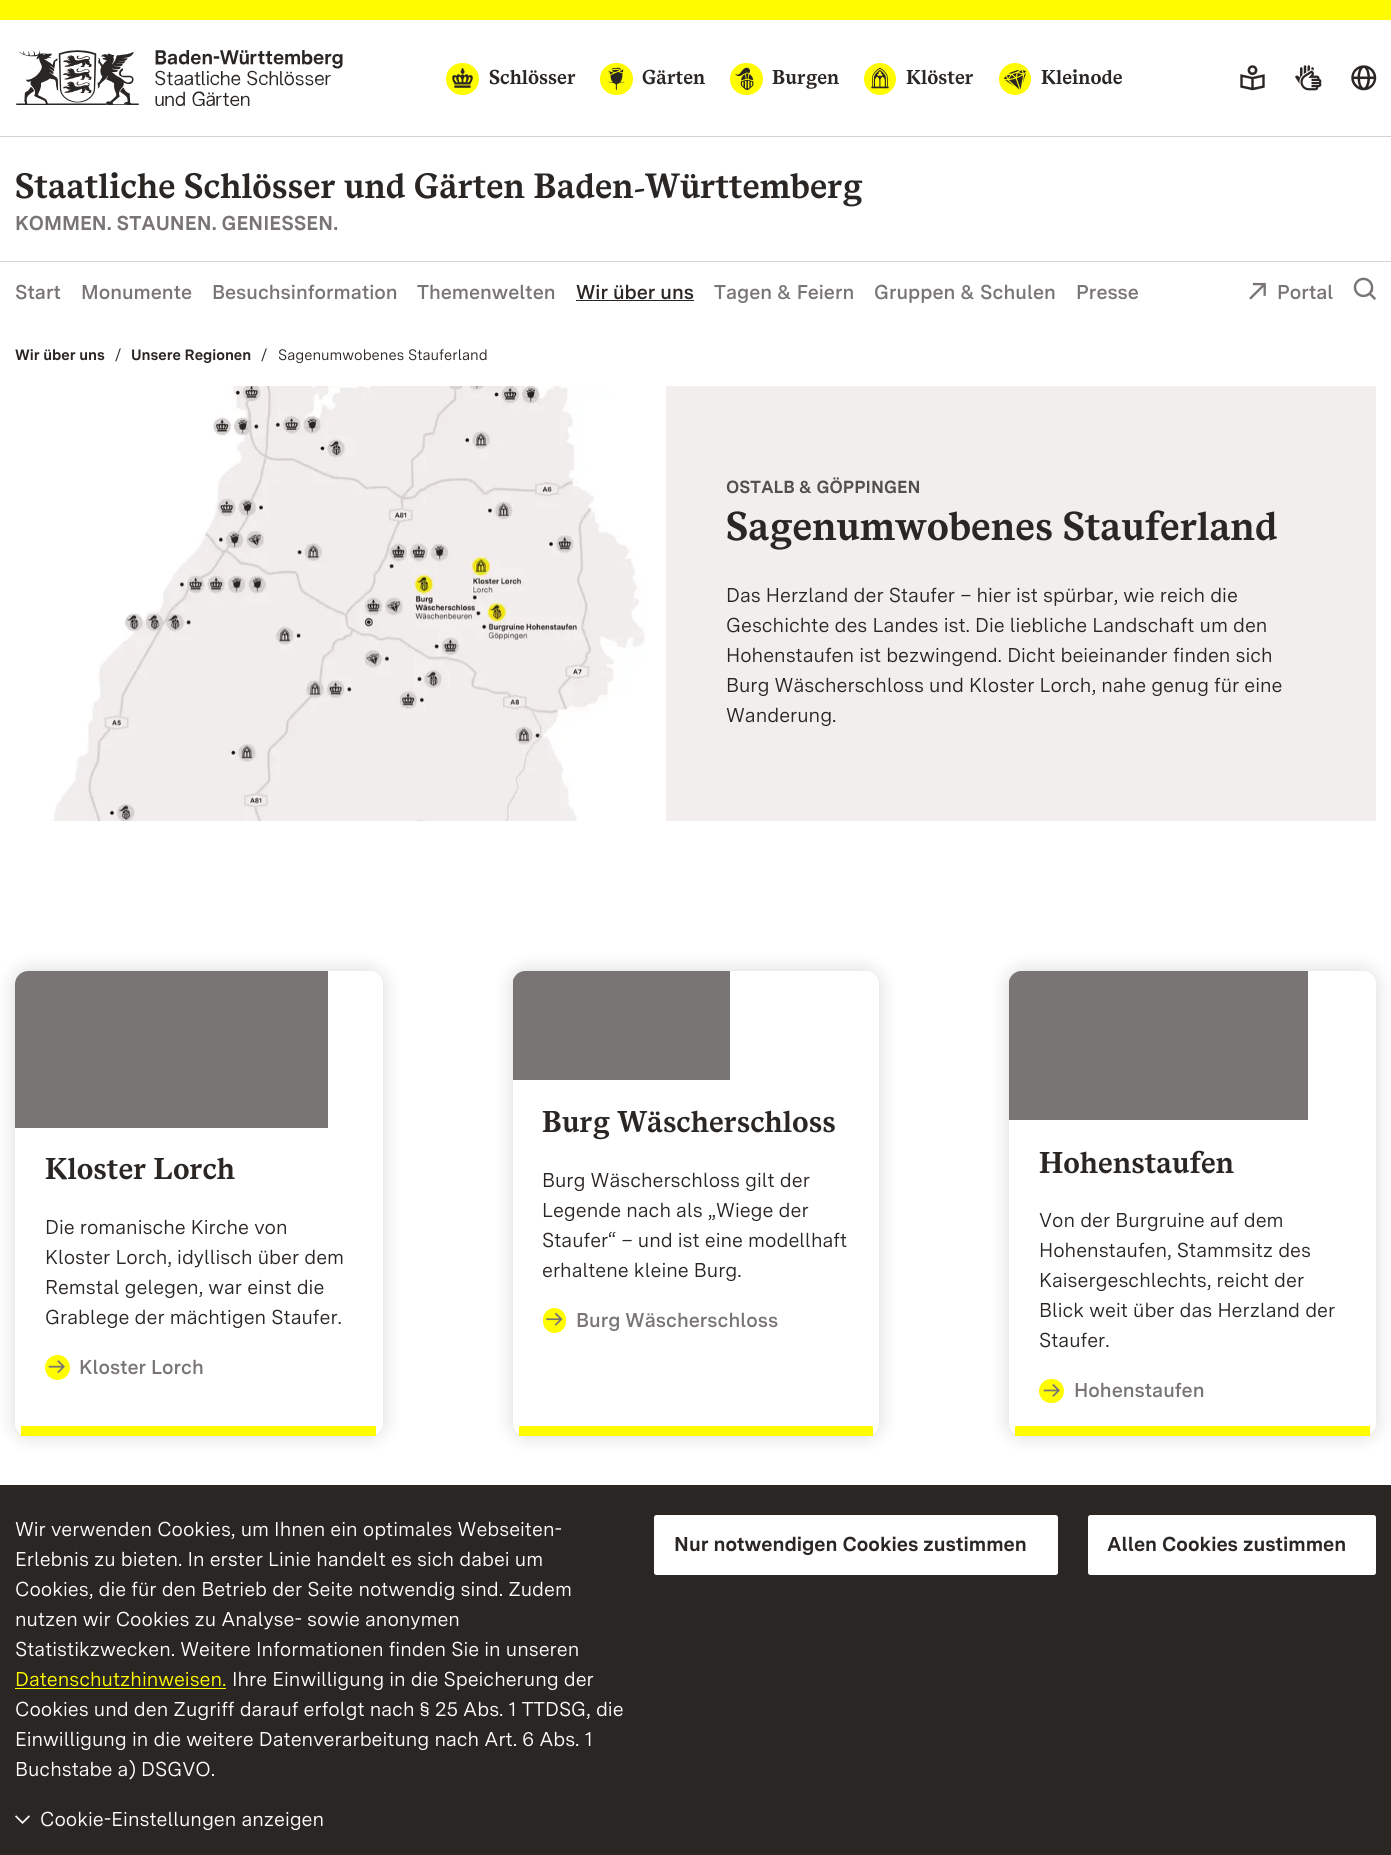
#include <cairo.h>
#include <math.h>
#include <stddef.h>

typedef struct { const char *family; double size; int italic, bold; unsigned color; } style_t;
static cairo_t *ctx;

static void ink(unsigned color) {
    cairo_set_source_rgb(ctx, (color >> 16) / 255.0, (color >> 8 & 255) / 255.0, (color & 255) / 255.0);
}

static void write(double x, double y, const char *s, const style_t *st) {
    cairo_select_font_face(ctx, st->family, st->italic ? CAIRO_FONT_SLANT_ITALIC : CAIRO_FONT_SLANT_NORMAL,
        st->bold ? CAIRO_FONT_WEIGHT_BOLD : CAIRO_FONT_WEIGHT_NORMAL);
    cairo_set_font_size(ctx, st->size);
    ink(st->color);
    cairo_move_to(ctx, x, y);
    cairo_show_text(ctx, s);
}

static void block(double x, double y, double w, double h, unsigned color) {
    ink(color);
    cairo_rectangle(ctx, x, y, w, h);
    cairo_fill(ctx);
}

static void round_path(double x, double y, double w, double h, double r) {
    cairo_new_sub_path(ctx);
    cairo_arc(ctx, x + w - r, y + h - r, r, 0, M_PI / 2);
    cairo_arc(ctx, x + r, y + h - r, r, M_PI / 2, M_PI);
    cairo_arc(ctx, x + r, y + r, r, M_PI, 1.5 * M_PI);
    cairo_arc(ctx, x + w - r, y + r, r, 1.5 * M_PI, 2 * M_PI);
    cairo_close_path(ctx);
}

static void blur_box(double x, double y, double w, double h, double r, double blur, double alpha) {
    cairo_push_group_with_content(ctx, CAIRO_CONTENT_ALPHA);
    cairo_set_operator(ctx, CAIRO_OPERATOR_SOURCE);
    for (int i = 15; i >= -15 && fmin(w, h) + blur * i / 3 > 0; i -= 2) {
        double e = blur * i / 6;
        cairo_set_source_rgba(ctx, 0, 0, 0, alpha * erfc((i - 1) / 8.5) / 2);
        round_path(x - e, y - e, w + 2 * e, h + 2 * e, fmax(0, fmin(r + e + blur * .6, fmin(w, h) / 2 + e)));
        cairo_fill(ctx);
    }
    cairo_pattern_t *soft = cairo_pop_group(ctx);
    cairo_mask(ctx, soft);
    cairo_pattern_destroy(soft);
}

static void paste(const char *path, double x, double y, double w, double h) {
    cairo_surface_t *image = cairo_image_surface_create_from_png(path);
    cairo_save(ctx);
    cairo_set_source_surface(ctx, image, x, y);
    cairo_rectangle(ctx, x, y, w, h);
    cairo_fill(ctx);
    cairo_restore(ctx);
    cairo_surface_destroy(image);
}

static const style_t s1 = {"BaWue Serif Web", 20, 0, 1, 0x2a2623};
static const style_t s2 = {"BaWue Serif Web", 35, 0, 1, 0x2a2623};
static const style_t s3 = {"EB Garamond", 35, 0, 1, 0x2a2623};
static const style_t s4 = {"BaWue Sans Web", 20, 0, 1, 0x7a7575};
static const style_t s5 = {"BaWue Sans Web SemiBold", 20, 0, 0, 0x7a7575};
static const style_t s6 = {"BaWue Sans Web SemiBold", 20, 0, 0, 0x2a2623};
static const style_t s7 = {"BaWue Sans Web", 15, 0, 1, 0x2a2623};
static const style_t s8 = {"BaWue Sans Web", 15, 0, 0, 0x2a2623};
static const style_t s9 = {"BaWue Sans Web", 17.5, 0, 1, 0x544f4f};
static const style_t s10 = {"BaWue Serif Web", 40, 0, 1, 0x2a2623};
static const style_t s11 = {"BaWue Sans Web", 20, 0, 0, 0x2a2623};
static const style_t s12 = {"BaWue Serif Web", 30, 0, 1, 0x2a2623};
static const style_t s13 = {"BaWue Sans Web", 20, 0, 0, 0xffffff};
static const style_t s14 = {"BaWue Sans Web", 20, 0, 0, 0xfffc00};
static const style_t s15 = {"BaWue Sans Web", 20, 0, 1, 0x2a2623};

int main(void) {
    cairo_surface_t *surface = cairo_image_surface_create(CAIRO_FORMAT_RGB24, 1391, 1855);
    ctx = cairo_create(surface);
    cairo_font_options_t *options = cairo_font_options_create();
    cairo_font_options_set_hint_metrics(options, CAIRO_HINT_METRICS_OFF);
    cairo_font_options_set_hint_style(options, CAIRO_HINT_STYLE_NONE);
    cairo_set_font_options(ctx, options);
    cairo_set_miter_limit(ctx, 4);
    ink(0xffffff);
    cairo_paint(ctx);
    block(0, 0, 1391, 20, 0xfffc00);
    paste("pic1.png", 16, 50, 327, 56);
    round_path(446, 63, 33, 32, 16);
    cairo_fill(ctx);
    paste("pic2.png", 452, 68, 21, 20);
    write(489, 84, "Schlösser", &s1);
    ink(0xfffc00);
    round_path(600, 63, 33, 32, 16);
    cairo_fill(ctx);
    paste("pic3.png", 608, 67, 17, 23);
    write(642, 84, "Gärten", &s1);
    ink(0xfffc00);
    round_path(730, 63, 33, 32, 16);
    cairo_fill(ctx);
    paste("pic4.png", 735, 67, 19, 24);
    write(772, 84, "Burgen", &s1);
    ink(0xfffc00);
    cairo_new_path(ctx);
    cairo_arc(ctx, 880, 79, 16, 0, 2 * M_PI);
    cairo_fill(ctx);
    paste("pic5.png", 871, 67, 18, 22);
    write(906, 84, "Klöster", &s1);
    ink(0xfffc00);
    cairo_new_path(ctx);
    cairo_arc(ctx, 1015, 79, 16, 0, 2 * M_PI);
    cairo_fill(ctx);
    paste("pic6.png", 1003, 70, 24, 20);
    write(1041, 84, "Kleinode", &s1);
    paste("pic7.png", 1240, 65, 25, 26);
    paste("pic8.png", 1295, 65, 27, 26);
    paste("pic9.png", 1351, 65, 26, 26);
    block(0, 136, 1391, 1, 0xd7d2d1);
    write(15, 198, "Staatliche Schlösser und Gärten Baden", &s2);
    write(634, 198, "‑", &s3);
    write(645, 198, "Württemberg", &s2);
    write(15, 230, "KOMMEN. STAUNEN. GENIESSEN.", &s4);
    block(0, 261, 1391, 1, 0xd7d2d1);
    write(15, 299, "Start", &s5);
    write(81, 299, "Monumente", &s5);
    write(212, 299, "Besuchsinformation", &s5);
    write(417, 299, "Themenwelten", &s5);
    write(576, 299, "Wir über uns", &s6);
    block(576, 300, 118, 1, 0x2a2623);
    write(714, 299, "Tagen & Feiern", &s5);
    write(874, 299, "Gruppen & Schulen", &s5);
    write(1076, 299, "Presse", &s5);
    paste("pic10.png", 1249, 282, 17, 18);
    write(1277, 299, "Portal", &s5);
    paste("pic11.png", 1353, 277, 23, 23);
    write(15, 360, "Wir über uns", &s7);
    write(115, 360, "/", &s8);
    write(131, 360, "Unsere Regionen", &s7);
    write(261, 360, "/", &s8);
    write(278, 360, "Sagenumwobenes Stauferland", &s8);
    block(15, 386, 1361, 435, 0xf1eeed);
    paste("pic12.png", 15, 386, 651, 435);
    write(726, 493, "OSTALB & GÖPPINGEN", &s9);
    write(726, 540, "Sagenumwobenes Stauferland", &s10);
    write(726, 602, "Das Herzland der Staufer – hier ist spürbar, wie reich die", &s11);
    write(726, 632, "Geschichte des Landes ist. Die liebliche Landschaft um den", &s11);
    write(726, 662, "Hohenstaufen ist bezwingend. Dicht beieinander finden sich", &s11);
    write(726, 692, "Burg Wäscherschloss und Kloster Lorch, nahe genug für eine", &s11);
    write(726, 722, "Wanderung.", &s11);
    cairo_save(ctx);
    cairo_set_fill_rule(ctx, CAIRO_FILL_RULE_EVEN_ODD);
    cairo_new_path(ctx);
    cairo_move_to(ctx, 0, 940);
    cairo_line_to(ctx, 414, 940);
    cairo_line_to(ctx, 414, 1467);
    cairo_line_to(ctx, 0, 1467);
    cairo_close_path(ctx);
    cairo_move_to(ctx, 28, 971);
    cairo_line_to(ctx, 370, 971);
    cairo_curve_to(ctx, 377, 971, 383, 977, 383, 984);
    cairo_line_to(ctx, 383, 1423);
    cairo_curve_to(ctx, 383, 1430, 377, 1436, 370, 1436);
    cairo_line_to(ctx, 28, 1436);
    cairo_curve_to(ctx, 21, 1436, 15, 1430, 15, 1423);
    cairo_line_to(ctx, 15, 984);
    cairo_curve_to(ctx, 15, 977, 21, 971, 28, 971);
    cairo_close_path(ctx);
    cairo_clip(ctx);
    ink(0x000000);
    blur_box(15, 971, 368, 465, 13, 10, 0.15);
    cairo_restore(ctx);
    block(21, 1426, 355, 10, 0xfffc00);
    ink(0x7a7575);
    cairo_new_path(ctx);
    cairo_move_to(ctx, 28, 971);
    cairo_curve_to(ctx, 21, 971, 15, 977, 15, 984);
    cairo_line_to(ctx, 15, 1128);
    cairo_line_to(ctx, 328, 1128);
    cairo_line_to(ctx, 328, 971);
    cairo_close_path(ctx);
    cairo_fill(ctx);
    write(45, 1179, "Kloster Lorch", &s12);
    write(45, 1234, "Die romanische Kirche von", &s11);
    write(45, 1264, "Kloster Lorch, idyllisch über dem", &s11);
    write(45, 1294, "Remstal gelegen, war einst die", &s11);
    write(45, 1324, "Grablege der mächtigen Staufer.", &s11);
    ink(0xfffc00);
    cairo_new_path(ctx);
    cairo_arc(ctx, 57.5, 1367.5, 12.5, 0, 2 * M_PI);
    cairo_fill(ctx);
    paste("pic13.png", 48, 1360, 17, 14);
    write(79, 1374, "Kloster Lorch", &s5);
    cairo_save(ctx);
    cairo_set_fill_rule(ctx, CAIRO_FILL_RULE_EVEN_ODD);
    cairo_new_path(ctx);
    cairo_move_to(ctx, 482, 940);
    cairo_line_to(ctx, 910, 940);
    cairo_line_to(ctx, 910, 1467);
    cairo_line_to(ctx, 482, 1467);
    cairo_close_path(ctx);
    cairo_move_to(ctx, 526, 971);
    cairo_line_to(ctx, 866, 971);
    cairo_curve_to(ctx, 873, 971, 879, 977, 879, 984);
    cairo_line_to(ctx, 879, 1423);
    cairo_curve_to(ctx, 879, 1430, 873, 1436, 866, 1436);
    cairo_line_to(ctx, 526, 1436);
    cairo_curve_to(ctx, 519, 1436, 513, 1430, 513, 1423);
    cairo_line_to(ctx, 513, 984);
    cairo_curve_to(ctx, 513, 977, 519, 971, 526, 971);
    cairo_close_path(ctx);
    cairo_clip(ctx);
    ink(0x000000);
    blur_box(513, 971, 366, 465, 13, 10, 0.15);
    cairo_restore(ctx);
    block(519, 1426, 354, 10, 0xfffc00);
    ink(0x7a7575);
    cairo_new_path(ctx);
    cairo_move_to(ctx, 525, 971);
    cairo_line_to(ctx, 730, 971);
    cairo_line_to(ctx, 730, 1080);
    cairo_line_to(ctx, 513, 1080);
    cairo_line_to(ctx, 513, 980);
    cairo_curve_to(ctx, 515, 975, 519, 971, 525, 971);
    cairo_close_path(ctx);
    cairo_fill(ctx);
    write(542, 1132, "Burg Wäscherschloss", &s12);
    write(542, 1187, "Burg Wäscherschloss gilt der", &s11);
    write(542, 1217, "Legende nach als „Wiege der", &s11);
    write(542, 1247, "Staufer“ – und ist eine modellhaft", &s11);
    write(542, 1277, "erhaltene kleine Burg.", &s11);
    ink(0xfffc00);
    round_path(543, 1308, 23, 25, 11.5);
    cairo_fill(ctx);
    paste("pic14.png", 546, 1312, 17, 14);
    write(576, 1327, "Burg Wäscherschloss", &s5);
    cairo_save(ctx);
    cairo_set_fill_rule(ctx, CAIRO_FILL_RULE_EVEN_ODD);
    cairo_new_path(ctx);
    cairo_move_to(ctx, 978, 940);
    cairo_line_to(ctx, 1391, 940);
    cairo_line_to(ctx, 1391, 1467);
    cairo_line_to(ctx, 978, 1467);
    cairo_close_path(ctx);
    cairo_move_to(ctx, 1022, 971);
    cairo_line_to(ctx, 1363, 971);
    cairo_curve_to(ctx, 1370, 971, 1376, 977, 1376, 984);
    cairo_line_to(ctx, 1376, 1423);
    cairo_curve_to(ctx, 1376, 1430, 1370, 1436, 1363, 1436);
    cairo_line_to(ctx, 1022, 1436);
    cairo_curve_to(ctx, 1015, 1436, 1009, 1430, 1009, 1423);
    cairo_line_to(ctx, 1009, 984);
    cairo_curve_to(ctx, 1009, 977, 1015, 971, 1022, 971);
    cairo_close_path(ctx);
    cairo_clip(ctx);
    ink(0x000000);
    blur_box(1009, 971, 367, 465, 13, 10, 0.15);
    cairo_restore(ctx);
    block(1015, 1426, 355, 10, 0xfffc00);
    ink(0x7a7575);
    cairo_new_path(ctx);
    cairo_move_to(ctx, 1021, 971);
    cairo_line_to(ctx, 1308, 971);
    cairo_line_to(ctx, 1308, 1120);
    cairo_line_to(ctx, 1009, 1120);
    cairo_line_to(ctx, 1009, 981);
    cairo_curve_to(ctx, 1010, 976, 1015, 971, 1021, 971);
    cairo_close_path(ctx);
    cairo_fill(ctx);
    write(1039, 1173, "Hohenstaufen", &s12);
    write(1039, 1227, "Von der Burgruine auf dem", &s11);
    write(1039, 1257, "Hohenstaufen, Stammsitz des", &s11);
    write(1039, 1287, "Kaisergeschlechts, reicht der", &s11);
    write(1039, 1317, "Blick weit über das Herzland der", &s11);
    write(1039, 1347, "Staufer.", &s11);
    ink(0xfffc00);
    round_path(1039, 1379, 25, 24, 12);
    cairo_fill(ctx);
    paste("pic15.png", 1043, 1384, 17, 13);
    write(1074, 1397, "Hohenstaufen", &s5);
    block(0, 1485, 1391, 370, 0x2a2623);
    write(15, 1536, "Wir verwenden Cookies, um Ihnen ein optimales Webseiten-", &s13);
    write(15, 1566, "Erlebnis zu bieten. In erster Linie handelt es sich dabei um", &s13);
    write(15, 1596, "Cookies, die für den Betrieb der Seite notwendig sind. Zudem", &s13);
    write(15, 1626, "nutzen wir Cookies zu Analyse- sowie anonymen", &s13);
    write(15, 1656, "Statistikzwecken. Weitere Informationen finden Sie in unseren", &s13);
    write(15, 1686, "Datenschutzhinweisen.", &s14);
    block(15, 1688, 211, 1, 0xfffc00);
    write(232, 1686, "Ihre Einwilligung in die Speicherung der", &s13);
    write(15, 1716, "Cookies und den Zugriff darauf erfolgt nach § 25 Abs. 1 TTDSG, die", &s13);
    write(15, 1746, "Einwilligung in die weitere Datenverarbeitung nach Art. 6 Abs. 1", &s13);
    write(15, 1776, "Buchstabe a) DSGVO.", &s13);
    round_path(654, 1515, 404, 60, 2.5);
    cairo_fill(ctx);
    write(674, 1551, "Nur notwendigen Cookies zustimmen", &s15);
    ink(0xffffff);
    round_path(1088, 1515, 288, 60, 2.5);
    cairo_fill(ctx);
    write(1107, 1551, "Allen Cookies zustimmen", &s15);
    paste("pic16.png", 15, 1815, 15, 9);
    write(40, 1826, "Cookie-Einstellungen anzeigen", &s13);
    cairo_surface_write_to_png(surface, "screenshot.png");
    cairo_font_options_destroy(options);
    cairo_destroy(ctx);
    cairo_surface_destroy(surface);
    return 0;
}
